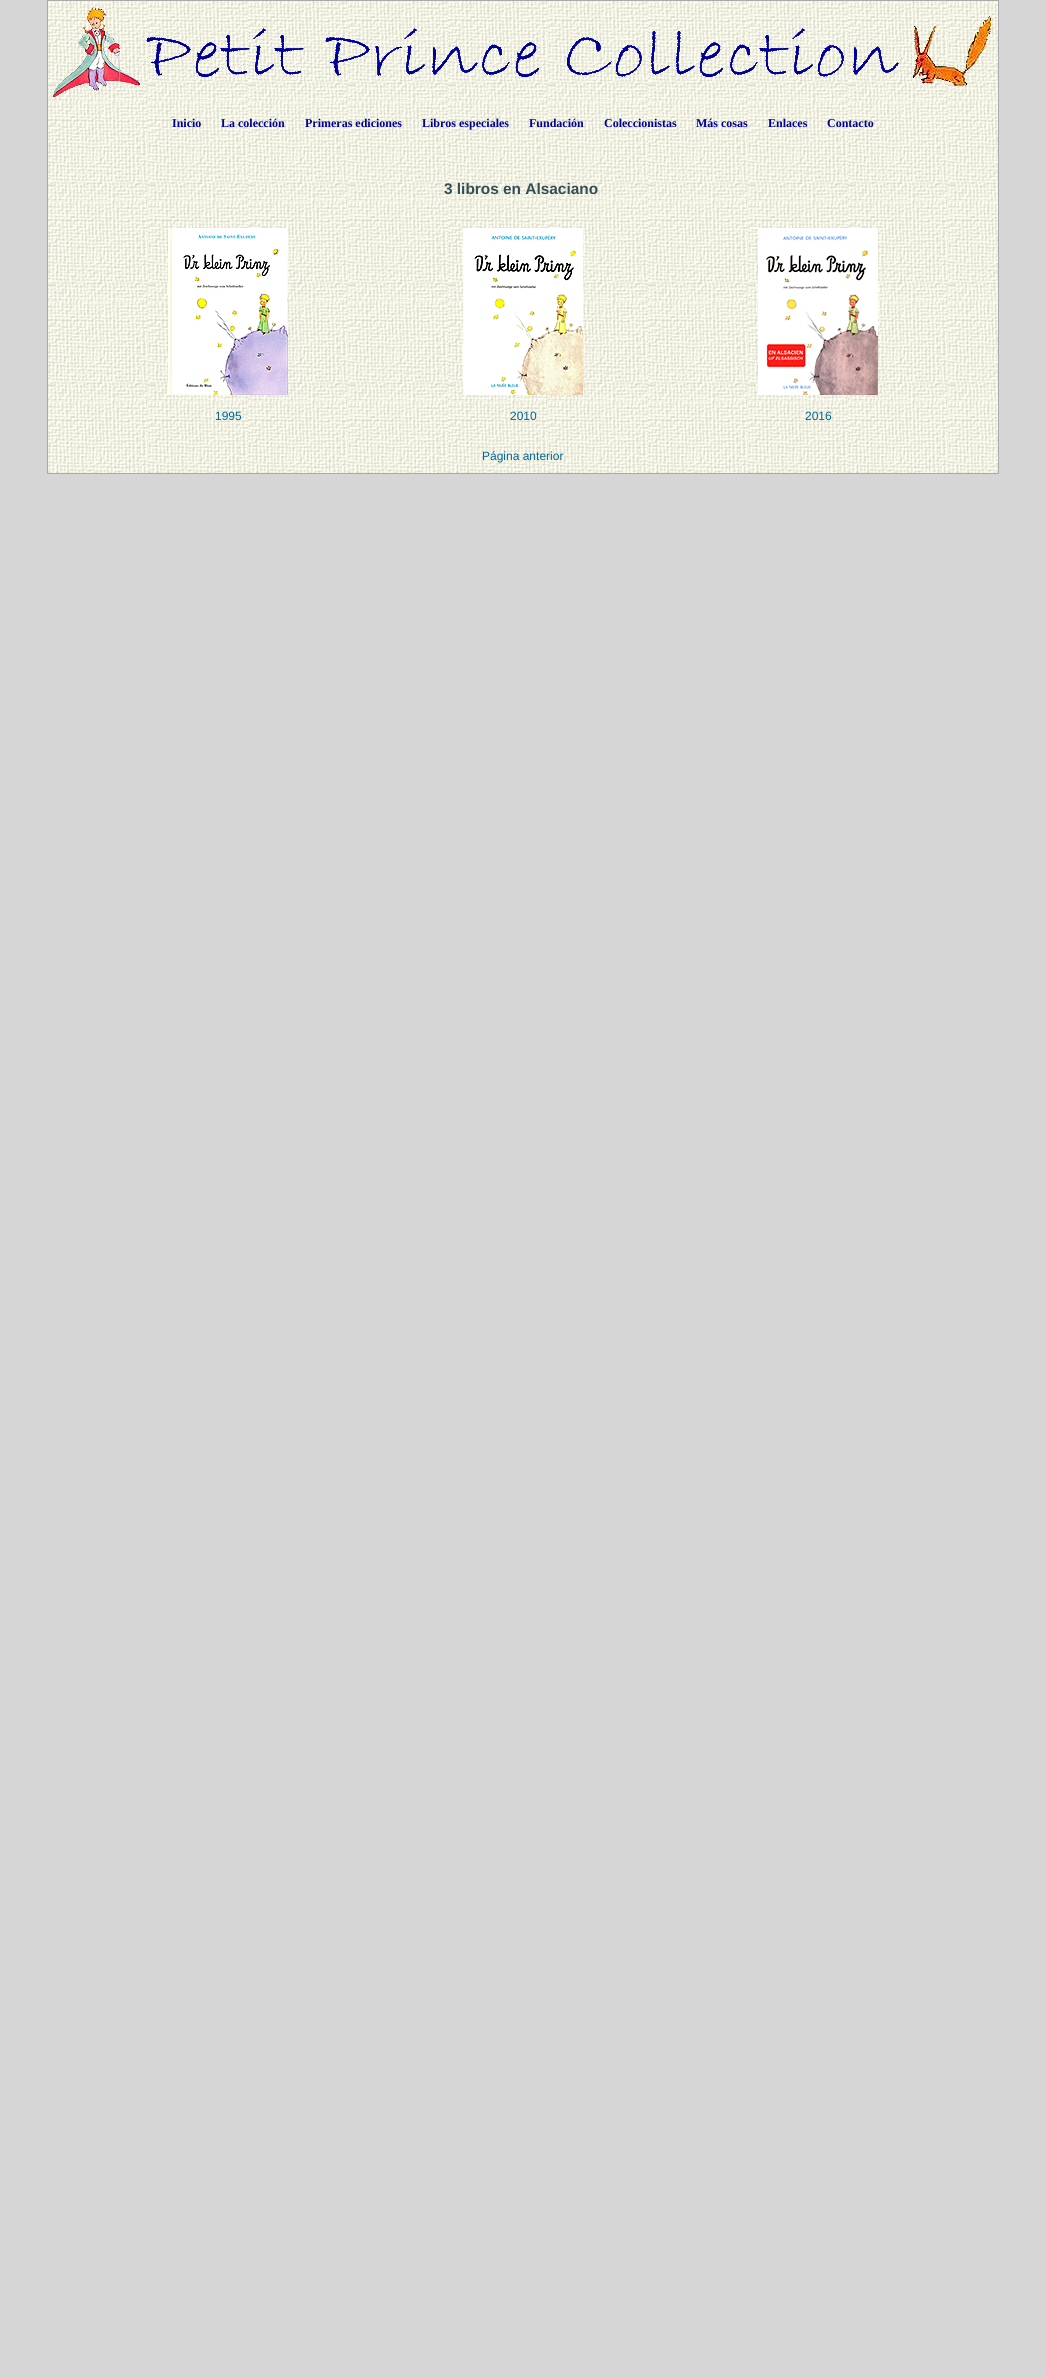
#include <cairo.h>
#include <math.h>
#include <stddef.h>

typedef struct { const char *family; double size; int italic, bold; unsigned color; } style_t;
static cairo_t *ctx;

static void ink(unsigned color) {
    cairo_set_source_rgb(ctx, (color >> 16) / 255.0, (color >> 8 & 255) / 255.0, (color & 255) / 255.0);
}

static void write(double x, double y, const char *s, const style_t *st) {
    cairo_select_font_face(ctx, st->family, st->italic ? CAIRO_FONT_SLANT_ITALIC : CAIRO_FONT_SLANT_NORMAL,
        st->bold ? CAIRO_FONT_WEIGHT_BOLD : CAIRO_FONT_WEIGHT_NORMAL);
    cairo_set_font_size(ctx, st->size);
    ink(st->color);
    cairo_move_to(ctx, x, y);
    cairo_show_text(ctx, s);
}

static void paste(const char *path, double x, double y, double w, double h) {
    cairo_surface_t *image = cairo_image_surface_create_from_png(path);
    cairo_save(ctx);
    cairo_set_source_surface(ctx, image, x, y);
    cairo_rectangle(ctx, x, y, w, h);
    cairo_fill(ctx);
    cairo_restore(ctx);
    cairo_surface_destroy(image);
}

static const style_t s1 = {"Liberation Serif", 12, 0, 1, 0x000099};
static const style_t s2 = {"Liberation Sans", 15.4, 0, 1, 0x334d55};
static const style_t s3 = {"Liberation Sans", 12, 0, 0, 0x006699};

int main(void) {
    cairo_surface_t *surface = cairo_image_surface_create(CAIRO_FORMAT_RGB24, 1046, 2378);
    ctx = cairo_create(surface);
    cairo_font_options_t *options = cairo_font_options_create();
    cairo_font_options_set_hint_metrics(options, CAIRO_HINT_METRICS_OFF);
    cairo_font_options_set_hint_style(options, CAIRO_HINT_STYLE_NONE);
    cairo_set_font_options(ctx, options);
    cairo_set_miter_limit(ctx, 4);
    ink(0xd6d6d6);
    cairo_paint(ctx);
    paste("pic1.png", 48, 1, 950, 472);
    cairo_rectangle(ctx, 47.5, 0.5, 951, 473);
    ink(0xaaaaaa);
    cairo_set_line_width(ctx, 1);
    cairo_stroke(ctx);
    paste("pic2.png", 53, 7, 938, 90);
    write(172, 127, "Inicio", &s1);
    write(221, 127, "La colección", &s1);
    write(305, 127, "Primeras ediciones", &s1);
    write(422, 127, "Libros especiales", &s1);
    write(529, 127, "Fundación", &s1);
    write(604, 127, "Coleccionistas", &s1);
    write(696, 127, "Más cosas", &s1);
    write(768, 127, "Enlaces", &s1);
    write(827, 127, "Contacto", &s1);
    write(444, 194, "3 libros en Alsaciano", &s2);
    paste("pic3.png", 168, 228, 120, 167);
    write(215, 420, "1995", &s3);
    paste("pic4.png", 463, 228, 120, 167);
    write(510, 420, "2010", &s3);
    paste("pic5.png", 758, 228, 120, 167);
    write(805, 420, "2016", &s3);
    write(482, 460, "Página anterior", &s3);
    cairo_surface_write_to_png(surface, "screenshot.png");
    cairo_font_options_destroy(options);
    cairo_destroy(ctx);
    cairo_surface_destroy(surface);
    return 0;
}
